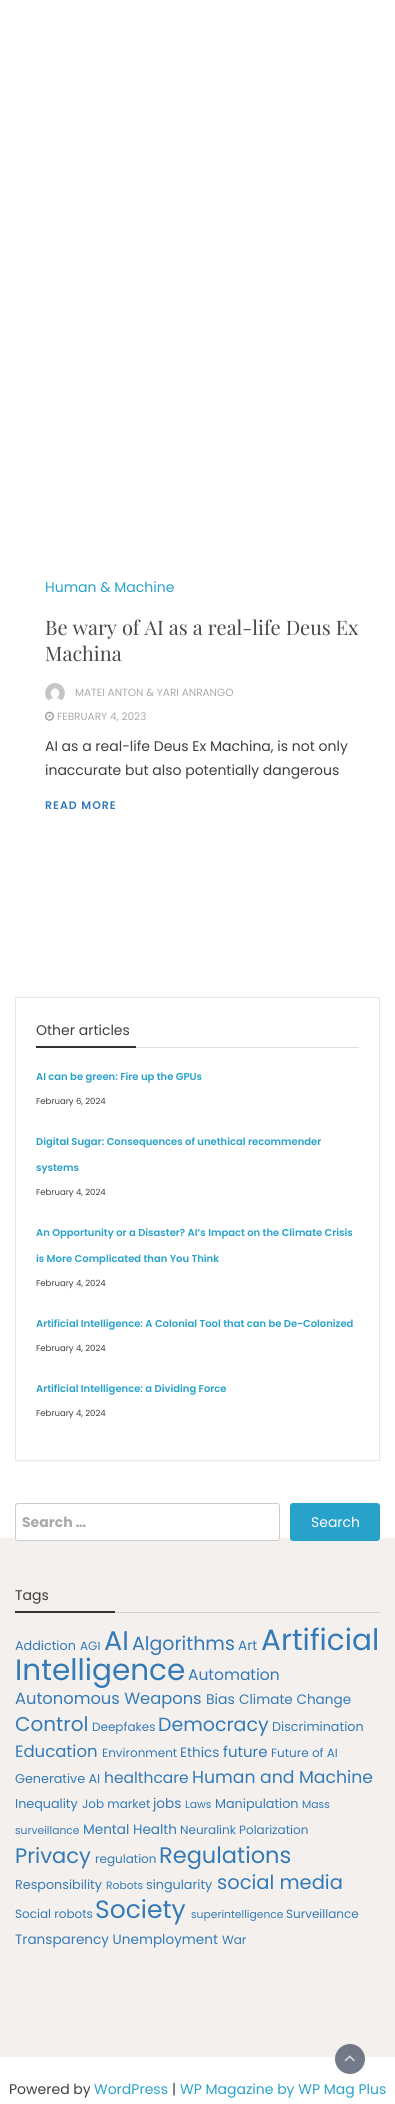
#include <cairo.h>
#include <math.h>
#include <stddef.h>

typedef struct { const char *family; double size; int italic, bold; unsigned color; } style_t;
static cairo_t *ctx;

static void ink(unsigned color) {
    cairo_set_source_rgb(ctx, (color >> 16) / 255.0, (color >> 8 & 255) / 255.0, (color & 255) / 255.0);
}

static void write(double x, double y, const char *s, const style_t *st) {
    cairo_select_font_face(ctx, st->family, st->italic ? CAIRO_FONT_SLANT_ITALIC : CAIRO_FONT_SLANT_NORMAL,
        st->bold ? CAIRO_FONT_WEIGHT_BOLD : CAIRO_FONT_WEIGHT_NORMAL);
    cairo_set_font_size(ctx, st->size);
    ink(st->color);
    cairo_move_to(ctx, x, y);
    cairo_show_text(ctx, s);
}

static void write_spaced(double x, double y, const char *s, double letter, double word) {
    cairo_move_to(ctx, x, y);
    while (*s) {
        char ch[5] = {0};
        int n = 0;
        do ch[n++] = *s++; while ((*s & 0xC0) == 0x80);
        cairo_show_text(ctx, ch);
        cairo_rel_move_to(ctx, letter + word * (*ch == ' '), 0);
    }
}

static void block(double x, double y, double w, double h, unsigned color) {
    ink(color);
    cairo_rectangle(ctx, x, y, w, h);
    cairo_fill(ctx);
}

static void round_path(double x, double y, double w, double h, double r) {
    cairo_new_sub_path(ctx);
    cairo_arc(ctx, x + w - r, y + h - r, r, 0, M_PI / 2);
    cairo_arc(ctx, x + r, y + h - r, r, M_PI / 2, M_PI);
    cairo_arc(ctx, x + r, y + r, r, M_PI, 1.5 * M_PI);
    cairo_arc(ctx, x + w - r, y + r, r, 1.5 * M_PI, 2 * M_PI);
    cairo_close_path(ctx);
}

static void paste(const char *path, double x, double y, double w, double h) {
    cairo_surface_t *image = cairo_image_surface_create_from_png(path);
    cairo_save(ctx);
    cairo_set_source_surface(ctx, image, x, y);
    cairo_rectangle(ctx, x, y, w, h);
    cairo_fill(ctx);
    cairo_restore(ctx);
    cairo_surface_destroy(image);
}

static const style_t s1 = {"Poppins", 14, 0, 0, 0x29a2cb};
static const style_t s2 = {"Playfair Display", 20, 0, 0, 0x474747};
static const style_t s3 = {"Poppins", 10.5, 0, 0, 0xaaaaaa};
static const style_t s4 = {"Poppins", 14, 0, 0, 0x3f3f3f};
static const style_t s5 = {"Poppins SemiBold", 10, 0, 0, 0x29a2cb};
static const style_t s6 = {"Poppins", 8.5, 0, 0, 0x3f3f3f};
static const style_t s7 = {"Poppins", 14, 0, 1, 0xaaaaaa};
static const style_t s8 = {"Poppins", 14, 0, 0, 0xffffff};
static const style_t s9 = {"Poppins", 12.75, 0, 0, 0x337ab7};
static const style_t s10 = {"Poppins", 12, 0, 0, 0x337ab7};
static const style_t s11 = {"Poppins", 27, 0, 0, 0x337ab7};
static const style_t s12 = {"Poppins", 19, 0, 0, 0x337ab7};
static const style_t s13 = {"Poppins", 13.6, 0, 0, 0x337ab7};
static const style_t s14 = {"Poppins", 29.5, 0, 0, 0x337ab7};
static const style_t s15 = {"Poppins", 15.5, 0, 0, 0x337ab7};
static const style_t s16 = {"Poppins", 16.3, 0, 0, 0x337ab7};
static const style_t s17 = {"Poppins", 14, 0, 0, 0x337ab7};
static const style_t s18 = {"Poppins", 20, 0, 0, 0x337ab7};
static const style_t s19 = {"Poppins", 16.5, 0, 0, 0x337ab7};
static const style_t s20 = {"Poppins", 15, 0, 0, 0x337ab7};
static const style_t s21 = {"Poppins", 17.25, 0, 0, 0x337ab7};
static const style_t s22 = {"Poppins", 10.75, 0, 0, 0x337ab7};
static const style_t s23 = {"Poppins", 21, 0, 0, 0x337ab7};
static const style_t s24 = {"Poppins", 22.5, 0, 0, 0x337ab7};
static const style_t s25 = {"Poppins", 19.5, 0, 0, 0x337ab7};
static const style_t s26 = {"Poppins", 25, 0, 0, 0x337ab7};

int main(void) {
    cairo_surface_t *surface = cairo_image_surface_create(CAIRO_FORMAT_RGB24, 395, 2104);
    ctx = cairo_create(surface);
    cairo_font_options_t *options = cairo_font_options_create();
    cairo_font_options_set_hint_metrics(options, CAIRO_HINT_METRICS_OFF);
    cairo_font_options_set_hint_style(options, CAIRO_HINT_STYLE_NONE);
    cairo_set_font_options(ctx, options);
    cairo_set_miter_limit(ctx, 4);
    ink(0xffffff);
    cairo_paint(ctx);
    write(45, 592, "Human & Machine", &s1);
    write(45, 635, "Be wary of AI as a real-life Deus Ex", &s2);
    write(45, 661, "Machina", &s2);
    paste("pic1.png", 45, 683, 20, 18);
    write(75, 696, "MATEI ANTON & YARI ANRANGO", &s3);
    paste("pic2.png", 45, 711, 9, 10);
    write(57, 720, "FEBRUARY 4, 2023", &s3);
    write(45, 751, "AI as a real-life Deus Ex Machina, is not only", &s4);
    write(45, 775, "inaccurate but also potentially dangerous", &s4);
    cairo_select_font_face(ctx, "Poppins SemiBold", CAIRO_FONT_SLANT_NORMAL, CAIRO_FONT_WEIGHT_NORMAL);
    cairo_set_font_size(ctx, 11);
    ink(0x337ab7);
    write_spaced(45, 809, "READ MORE", 1, 0);
    cairo_rectangle(ctx, 15.5, 997.5, 364, 463);
    ink(0xe6e6e6);
    cairo_set_line_width(ctx, 1);
    cairo_stroke(ctx);
    block(136, 1047, 223, 1, 0xdedede);
    write(36, 1035, "Other articles", &s4);
    block(36, 1046, 100, 2, 0x333333);
    write(36, 1080, "AI can be green: Fire up the GPUs", &s5);
    write(36, 1104, "February 6, 2024", &s6);
    write(36, 1145, "Digital Sugar: Consequences of unethical recommender", &s5);
    write(36, 1171, "systems", &s5);
    write(36, 1195, "February 4, 2024", &s6);
    write(36, 1236, "An Opportunity or a Disaster? AI’s Impact on the Climate Crisis", &s5);
    write(36, 1262, "is More Complicated than You Think", &s5);
    write(36, 1286, "February 4, 2024", &s6);
    write(36, 1327, "Artificial Intelligence: A Colonial Tool that can be De-Colonized", &s5);
    write(36, 1351, "February 4, 2024", &s6);
    write(36, 1392, "Artificial Intelligence: a Dividing Force", &s5);
    write(36, 1416, "February 4, 2024", &s6);
    block(0, 1538, 395, 519, 0xf4f0ed);
    ink(0xffffff);
    round_path(15.5, 1503.5, 264, 37, 2.5);
    cairo_fill_preserve(ctx);
    ink(0xcccccc);
    cairo_stroke(ctx);
    write(22, 1527, "Search …", &s7);
    ink(0x29a2cb);
    round_path(290, 1503, 90, 38, 3);
    cairo_fill(ctx);
    write(311, 1527, "Search", &s8);
    block(115, 1612, 265, 1, 0xd4d1ce);
    write(15, 1600, "Tags", &s4);
    block(15, 1611, 100, 2, 0x333333);
    write(15, 1650, "Addiction", &s9);
    write(80, 1650, "AGI", &s10);
    write(104, 1650, "AI", &s11);
    write(132, 1650, "Algorithms", &s12);
    write(238, 1650, "Art", &s13);
    write(261, 1650, "Artificial", &s14);
    write(15, 1680, "Intelligence", &s14);
    write(188, 1680, "Automation", &s15);
    write(15, 1704, "Autonomous Weapons", &s16);
    write(206, 1704, "Bias", &s17);
    write(239, 1704, "Climate Change", &s13);
    write(15, 1731, "Control", &s18);
    write(92, 1731, "Deepfakes", &s10);
    write(158, 1731, "Democracy", &s12);
    write(272, 1731, "Discrimination", &s9);
    write(15, 1757, "Education", &s19);
    write(102, 1757, "Environment", &s10);
    write(180, 1757, "Ethics", &s13);
    write(223, 1757, "future", &s20);
    write(271, 1757, "Future of AI", &s10);
    write(15, 1783, "Generative AI", &s9);
    write(104, 1783, "healthcare", &s15);
    write(192, 1783, "Human and Machine", &s21);
    write(15, 1808, "Inequality", &s9);
    write(82, 1808, "Job market", &s10);
    write(153, 1808, "jobs", &s13);
    write(185, 1808, "Laws", &s22);
    write(215, 1808, "Manipulation", &s9);
    write(302, 1808, "Mass", &s22);
    write(15, 1834, "surveillance", &s22);
    write(83, 1834, "Mental Health", &s13);
    write(180, 1834, "Neuralink", &s10);
    write(239, 1834, "Polarization", &s10);
    write(15, 1863, "Privacy", &s23);
    write(95, 1863, "regulation", &s10);
    write(159, 1863, "Regulations", &s24);
    write(15, 1889, "Responsibility", &s9);
    write(106, 1889, "Robots", &s22);
    write(146, 1889, "singularity", &s9);
    write(217, 1889, "social media", &s25);
    write(15, 1918, "Social robots", &s10);
    write(95, 1918, "Society", &s26);
    write(191, 1918, "superintelligence", &s22);
    write(286, 1918, "Surveillance", &s10);
    write(15, 1944, "Transparency Unemployment", &s13);
    write(222, 1944, "War", &s10);
    cairo_set_source_rgba(ctx, 0.314, 0.349, 0.424, 0.8);
    cairo_new_path(ctx);
    cairo_arc(ctx, 350, 2059, 15, 0, 2 * M_PI);
    cairo_fill(ctx);
    paste("pic3.png", 344, 2055, 11, 7);
    write(9, 2094, "Powered by", &s4);
    write(94, 2094, "WordPress", &s1);
    write(172, 2094, "|", &s4);
    write(180, 2094, "WP Magazine by WP Mag Plus", &s1);
    cairo_surface_write_to_png(surface, "screenshot.png");
    cairo_font_options_destroy(options);
    cairo_destroy(ctx);
    cairo_surface_destroy(surface);
    return 0;
}
